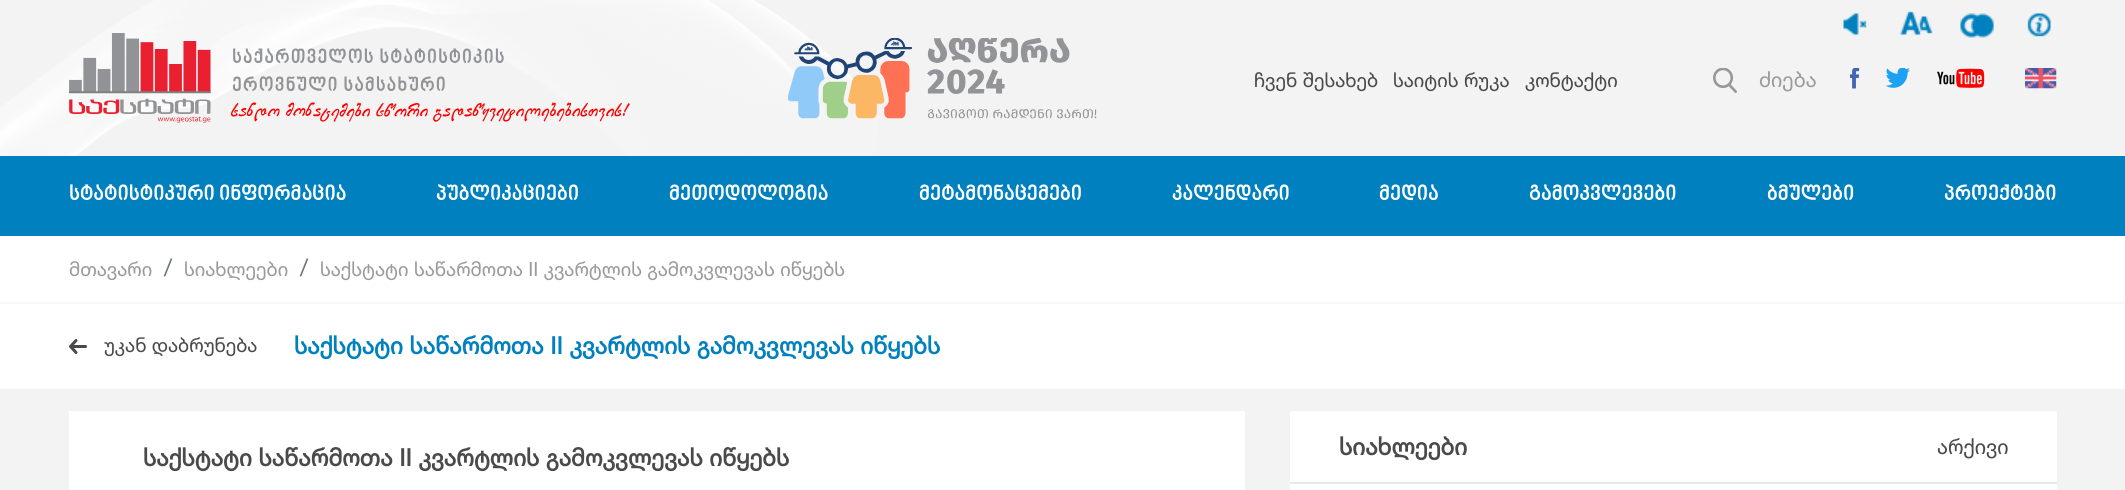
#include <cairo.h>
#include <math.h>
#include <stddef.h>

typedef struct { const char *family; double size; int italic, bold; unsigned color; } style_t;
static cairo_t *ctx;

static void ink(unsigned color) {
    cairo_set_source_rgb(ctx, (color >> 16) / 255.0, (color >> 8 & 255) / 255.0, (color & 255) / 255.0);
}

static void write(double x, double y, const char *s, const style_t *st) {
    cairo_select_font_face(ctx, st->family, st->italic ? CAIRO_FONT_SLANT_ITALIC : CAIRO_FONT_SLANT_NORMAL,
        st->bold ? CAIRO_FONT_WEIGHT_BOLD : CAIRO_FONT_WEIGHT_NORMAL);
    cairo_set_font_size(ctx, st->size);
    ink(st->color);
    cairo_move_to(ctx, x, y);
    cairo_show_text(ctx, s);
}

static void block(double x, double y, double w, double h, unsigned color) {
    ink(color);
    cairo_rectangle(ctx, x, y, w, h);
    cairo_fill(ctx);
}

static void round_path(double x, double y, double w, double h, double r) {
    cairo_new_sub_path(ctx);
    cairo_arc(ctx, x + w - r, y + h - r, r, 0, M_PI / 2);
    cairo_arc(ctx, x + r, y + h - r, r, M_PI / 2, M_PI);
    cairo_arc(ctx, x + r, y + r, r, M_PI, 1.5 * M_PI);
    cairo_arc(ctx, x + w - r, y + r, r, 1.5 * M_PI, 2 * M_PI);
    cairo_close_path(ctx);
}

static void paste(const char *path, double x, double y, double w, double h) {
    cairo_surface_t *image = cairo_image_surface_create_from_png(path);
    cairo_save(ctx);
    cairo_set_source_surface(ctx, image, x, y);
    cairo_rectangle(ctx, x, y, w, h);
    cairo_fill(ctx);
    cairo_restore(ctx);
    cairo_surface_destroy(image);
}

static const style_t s1 = {"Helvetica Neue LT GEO", 19.5, 0, 0, 0x4a4a4a};
static const style_t s2 = {"Helvetica Neue LT GEO", 21, 0, 0, 0x9b9b9b};
static const style_t s3 = {"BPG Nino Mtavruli", 21, 0, 1, 0xffffff};
static const style_t s4 = {"Helvetica Neue LT GEO", 19.5, 0, 0, 0x9b9b9b};
static const style_t s5 = {"Helvetica Neue LT GEO", 24, 0, 0, 0x6c757d};
static const style_t s6 = {"Helvetica Neue LT GEO", 24, 0, 1, 0x0080be};
static const style_t s7 = {"Helvetica Neue LT GEO", 24, 0, 1, 0x4a4a4a};
static const style_t s8 = {"Helvetica Neue LT GEO", 21, 0, 0, 0x4a4a4a};

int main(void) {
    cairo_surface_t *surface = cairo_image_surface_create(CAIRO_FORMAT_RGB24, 2125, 490);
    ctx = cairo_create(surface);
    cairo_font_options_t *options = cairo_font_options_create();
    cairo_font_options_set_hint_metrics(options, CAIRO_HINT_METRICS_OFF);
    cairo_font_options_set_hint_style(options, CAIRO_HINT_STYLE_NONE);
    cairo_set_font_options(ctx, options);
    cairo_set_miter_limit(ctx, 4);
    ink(0xf3f3f3);
    cairo_paint(ctx);
    paste("pic1.png", 0, 0, 877, 156);
    paste("pic2.png", 69, 33, 561, 90);
    paste("pic3.png", 788, 38, 309, 81);
    write(1254, 87, "ჩვენ შესახებ", &s1);
    write(1393, 87, "საიტის რუკა", &s1);
    write(1525, 87, "კონტაქტი", &s1);
    paste("pic4.png", 1843, 13, 24, 22);
    paste("pic5.png", 1900, 11, 33, 24);
    paste("pic6.png", 1960, 13, 34, 25);
    paste("pic7.png", 2027, 13, 24, 24);
    paste("pic8.png", 1850, 68, 10, 21);
    paste("pic9.png", 1886, 68, 24, 20);
    paste("pic10.png", 1937, 68, 48, 20);
    paste("pic11.png", 1713, 68, 24, 25);
    write(1759, 87, "ძიება", &s2);
    paste("pic12.png", 2025, 68, 32, 21);
    block(0, 156, 2125, 80, 0x0080be);
    write(69, 201, "სტატისტიკური ინფორმაცია", &s3);
    write(436, 201, "პუბლიკაციები", &s3);
    write(669, 201, "მეთოდოლოგია", &s3);
    write(919, 201, "მეტამონაცემები", &s3);
    write(1172, 201, "კალენდარი", &s3);
    write(1379, 201, "მედია", &s3);
    write(1529, 201, "გამოკვლევები", &s3);
    write(1767, 201, "ბმულები", &s3);
    write(1944, 201, "პროექტები", &s3);
    block(0, 236, 2125, 153, 0xffffff);
    block(0, 302, 2125, 2, 0xf7f7f7);
    write(69, 276, "მთავარი", &s4);
    write(164, 276, "/", &s5);
    write(184, 276, "სიახლეები", &s4);
    write(300, 276, "/", &s5);
    write(320, 276, "საქსტატი საწარმოთა II კვარტლის გამოკვლევას იწყებს", &s4);
    cairo_new_path(ctx);
    cairo_move_to(ctx, 85.5, 346.5);
    cairo_line_to(ctx, 70.5, 346.5);
    cairo_move_to(ctx, 76, 352.5);
    cairo_line_to(ctx, 70.5, 346.5);
    cairo_line_to(ctx, 76, 340.5);
    ink(0x4a4a4a);
    cairo_set_line_width(ctx, 3);
    cairo_set_line_cap(ctx, CAIRO_LINE_CAP_ROUND);
    cairo_set_line_join(ctx, CAIRO_LINE_JOIN_ROUND);
    cairo_stroke(ctx);
    write(104, 352, "უკან დაბრუნება", &s1);
    write(294, 354, "საქსტატი საწარმოთა II კვარტლის გამოკვლევას იწყებს", &s6);
    block(69, 411, 1176, 79, 0xffffff);
    write(143, 466, "საქსტატი საწარმოთა II კვარტლის გამოკვლევას იწყებს", &s7);
    ink(0xffffff);
    round_path(1290, 411, 767, 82, 3);
    cairo_fill(ctx);
    block(1290, 482, 767, 2, 0xe9e9e9);
    write(1339, 455, "სიახლეები", &s7);
    write(1937, 454, "არქივი", &s8);
    cairo_surface_write_to_png(surface, "screenshot.png");
    cairo_font_options_destroy(options);
    cairo_destroy(ctx);
    cairo_surface_destroy(surface);
    return 0;
}
